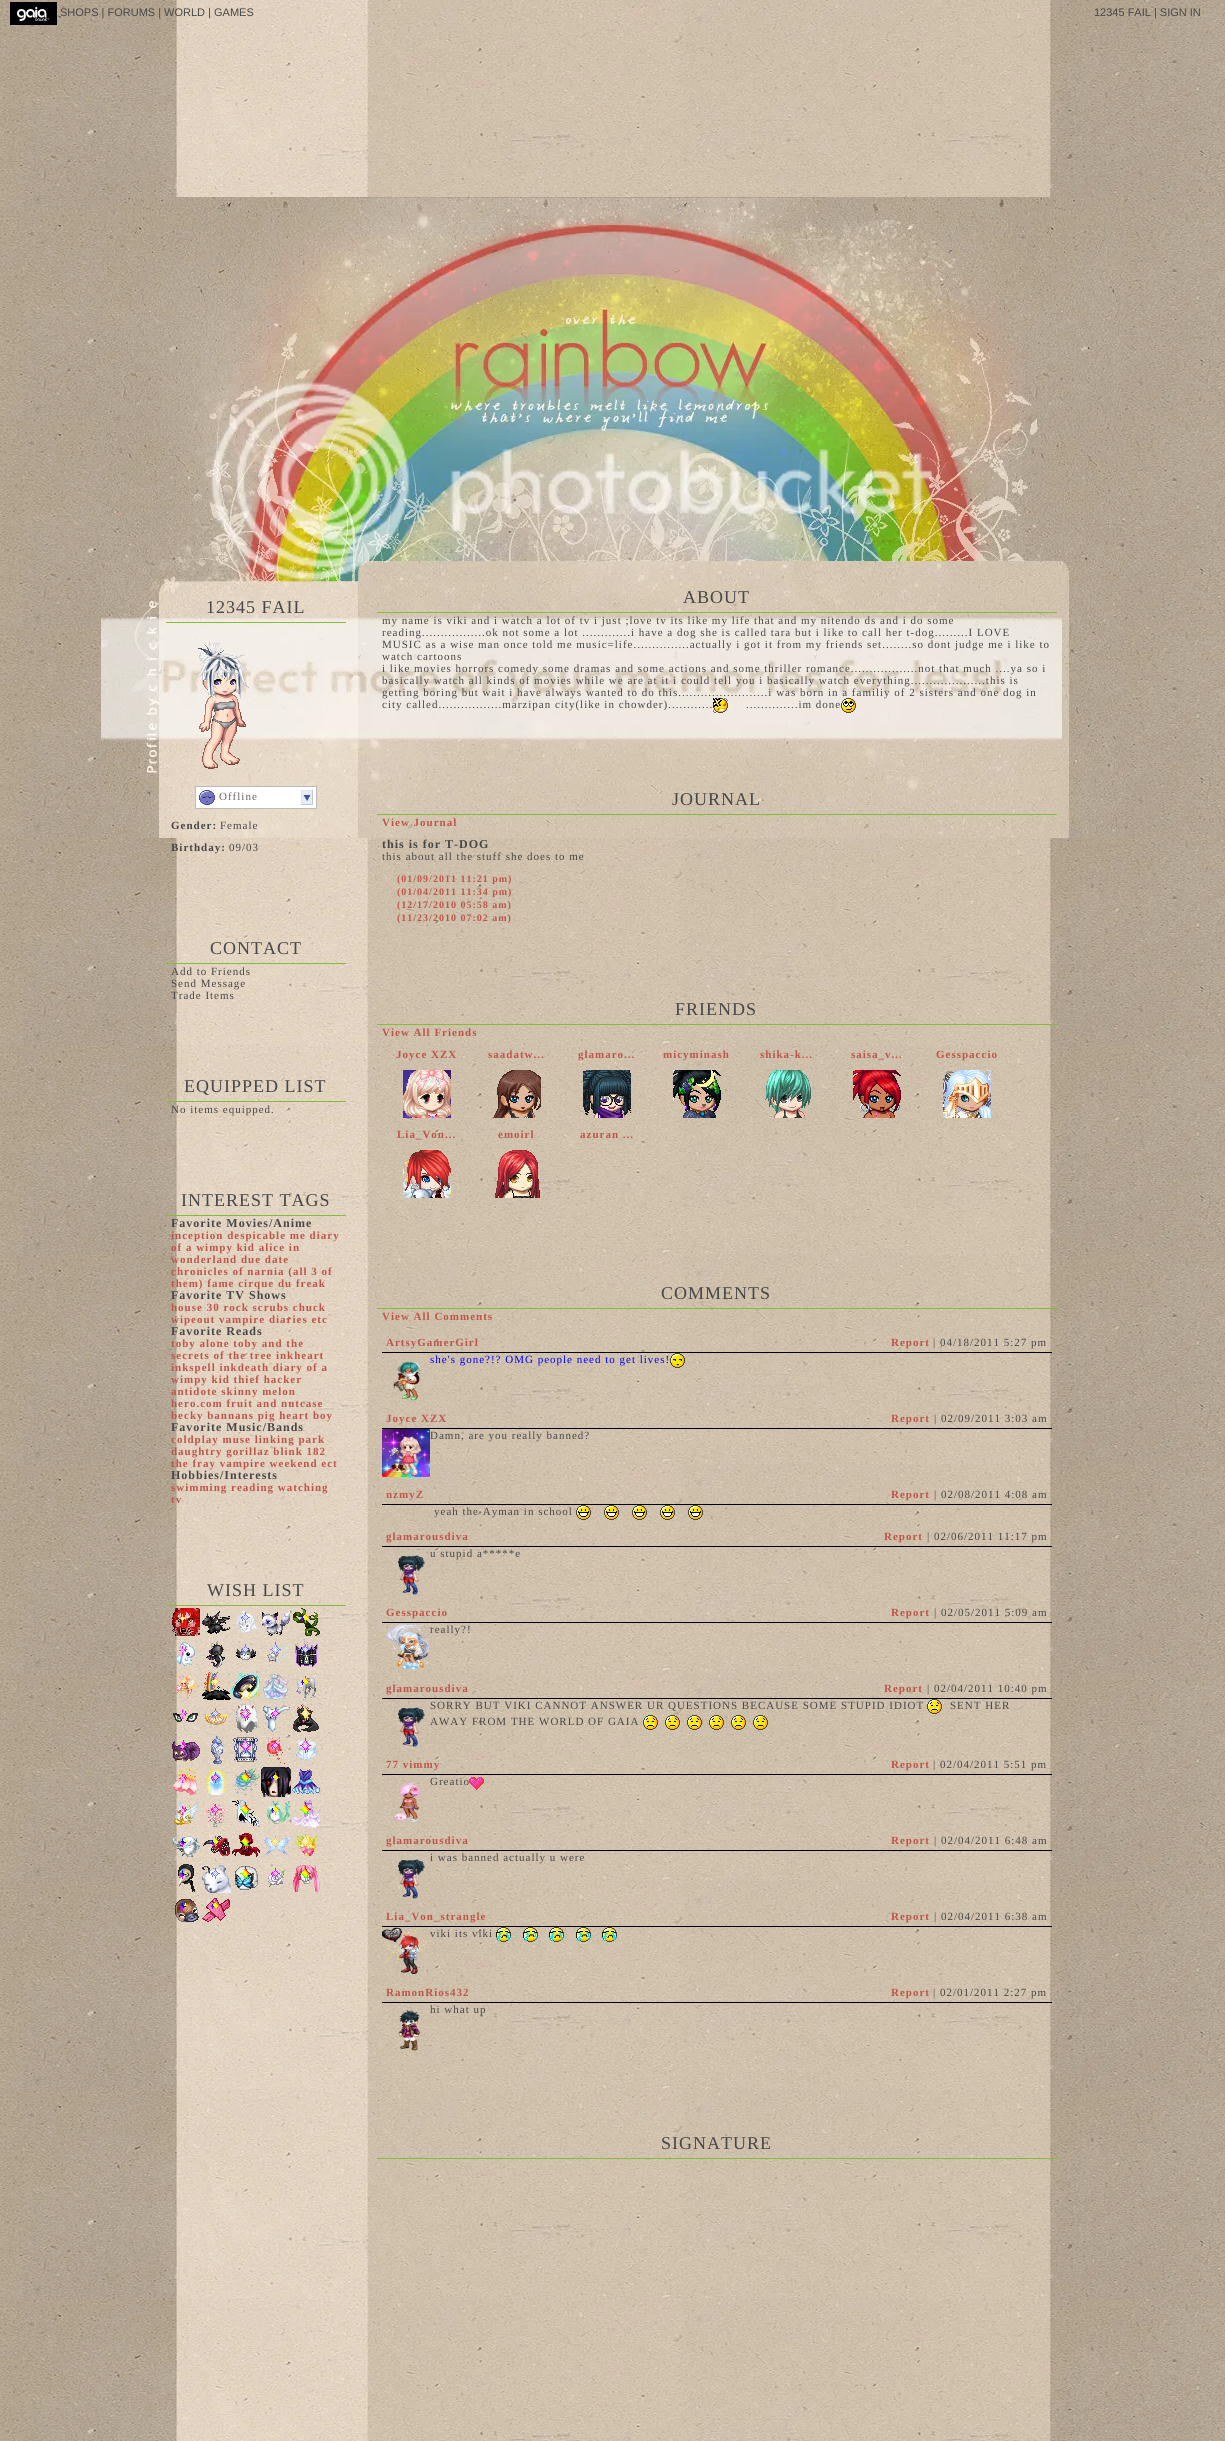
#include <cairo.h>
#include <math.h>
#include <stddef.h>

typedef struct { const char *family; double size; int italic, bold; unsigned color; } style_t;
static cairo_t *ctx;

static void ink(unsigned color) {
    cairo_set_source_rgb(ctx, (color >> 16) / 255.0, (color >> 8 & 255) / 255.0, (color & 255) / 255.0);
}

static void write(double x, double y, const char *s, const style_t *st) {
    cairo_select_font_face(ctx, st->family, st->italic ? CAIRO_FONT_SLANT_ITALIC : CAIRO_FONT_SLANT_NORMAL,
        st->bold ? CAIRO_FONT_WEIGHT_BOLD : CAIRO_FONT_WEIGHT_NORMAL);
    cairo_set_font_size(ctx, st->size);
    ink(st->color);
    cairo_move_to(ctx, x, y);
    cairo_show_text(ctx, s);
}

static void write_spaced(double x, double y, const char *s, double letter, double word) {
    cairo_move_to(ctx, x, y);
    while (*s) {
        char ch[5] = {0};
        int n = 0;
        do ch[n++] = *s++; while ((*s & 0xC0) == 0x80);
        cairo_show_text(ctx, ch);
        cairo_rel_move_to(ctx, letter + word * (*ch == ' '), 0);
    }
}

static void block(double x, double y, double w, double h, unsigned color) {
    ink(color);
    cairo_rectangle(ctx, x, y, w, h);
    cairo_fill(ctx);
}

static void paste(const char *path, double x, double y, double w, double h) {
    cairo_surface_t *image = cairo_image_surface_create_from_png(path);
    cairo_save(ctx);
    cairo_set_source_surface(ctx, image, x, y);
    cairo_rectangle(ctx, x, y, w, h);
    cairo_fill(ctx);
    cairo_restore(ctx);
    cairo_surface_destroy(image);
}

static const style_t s1 = {"Liberation Sans", 11, 0, 0, 0x464748};

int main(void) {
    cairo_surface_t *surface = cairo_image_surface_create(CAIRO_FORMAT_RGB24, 1225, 2441);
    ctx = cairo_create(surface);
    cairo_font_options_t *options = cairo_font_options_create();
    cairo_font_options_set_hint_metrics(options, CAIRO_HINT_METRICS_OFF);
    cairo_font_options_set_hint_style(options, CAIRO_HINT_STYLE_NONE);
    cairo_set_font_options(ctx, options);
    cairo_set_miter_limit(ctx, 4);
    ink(0xffffff);
    cairo_paint(ctx);
    paste("pic1.png", 0, 0, 1225, 2441);
    paste("pic2.png", 10, 2, 47, 23);
    write(60, 16, "SHOPS | FORUMS | WORLD | GAMES", &s1);
    write(1094, 16, "12345 FAIL | SIGN IN", &s1);
    paste("pic3.png", 101, 197, 1024, 641);
    block(166, 622, 180, 1, 0x82bd3d);
    cairo_select_font_face(ctx, "Liberation Serif", CAIRO_FONT_SLANT_NORMAL, CAIRO_FONT_WEIGHT_NORMAL);
    cairo_set_font_size(ctx, 18);
    ink(0x464748);
    write_spaced(206, 613, "12345 FAIL", 1, 0);
    paste("pic4.png", 195, 641, 54, 128);
    ink(0xffffff);
    cairo_rectangle(ctx, 195.5, 786.5, 121, 22);
    cairo_fill_preserve(ctx);
    ink(0xbbbbbb);
    cairo_set_line_width(ctx, 1);
    cairo_stroke(ctx);
    paste("pic5.png", 301, 790, 12, 15);
    paste("pic6.png", 199, 790, 16, 15);
    cairo_set_font_size(ctx, 11);
    ink(0x666666);
    write_spaced(219, 800, "Offline", 1, 0);
    cairo_select_font_face(ctx, "Liberation Serif", CAIRO_FONT_SLANT_NORMAL, CAIRO_FONT_WEIGHT_BOLD);
    ink(0x464748);
    write_spaced(171, 829, "Gender:", 1, 0);
    cairo_select_font_face(ctx, "Liberation Serif", CAIRO_FONT_SLANT_NORMAL, CAIRO_FONT_WEIGHT_NORMAL);
    write_spaced(220, 829, "Female", 1, 0);
    cairo_select_font_face(ctx, "Liberation Serif", CAIRO_FONT_SLANT_NORMAL, CAIRO_FONT_WEIGHT_BOLD);
    write_spaced(171, 851, "Birthday:", 1, 0);
    cairo_select_font_face(ctx, "Liberation Serif", CAIRO_FONT_SLANT_NORMAL, CAIRO_FONT_WEIGHT_NORMAL);
    write_spaced(229, 851, "09/03", 1, 0);
    block(166, 963, 180, 1, 0x82bd3d);
    cairo_set_font_size(ctx, 18);
    ink(0x464748);
    write_spaced(210, 954, "CONTACT", 1, 0);
    cairo_set_font_size(ctx, 11);
    write_spaced(171, 975, "Add to Friends", 1, 0);
    write_spaced(171, 987, "Send Message", 1, 0);
    write_spaced(171, 999, "Trade Items", 1, 0);
    block(166, 1101, 180, 1, 0x82bd3d);
    cairo_set_font_size(ctx, 18);
    ink(0x464748);
    write_spaced(184, 1092, "EQUIPPED LIST", 1, 0);
    cairo_set_font_size(ctx, 11);
    write_spaced(171, 1113, "No items equipped.", 1, 0);
    block(166, 1215, 180, 1, 0x82bd3d);
    cairo_set_font_size(ctx, 18);
    ink(0x464748);
    write_spaced(181, 1206, "INTEREST TAGS", 1, 0);
    cairo_select_font_face(ctx, "Liberation Serif", CAIRO_FONT_SLANT_NORMAL, CAIRO_FONT_WEIGHT_BOLD);
    cairo_set_font_size(ctx, 12);
    write_spaced(171, 1227, "Favorite Movies/Anime", 1, 0);
    cairo_set_font_size(ctx, 11);
    ink(0xbd564a);
    write_spaced(171, 1239, "inception despicable me diary", 1, 0);
    write_spaced(171, 1251, "of a wimpy kid alice in", 1, 0);
    write_spaced(171, 1263, "wonderland due date", 1, 0);
    write_spaced(171, 1275, "chronicles of narnia (all 3 of", 1, 0);
    write_spaced(171, 1287, "them) fame cirque du freak", 1, 0);
    cairo_set_font_size(ctx, 12);
    ink(0x464748);
    write_spaced(171, 1299, "Favorite TV Shows", 1, 0);
    cairo_set_font_size(ctx, 11);
    ink(0xbd564a);
    write_spaced(171, 1311, "house 30 rock scrubs chuck", 1, 0);
    write_spaced(171, 1323, "wipeout vampire diaries etc", 1, 0);
    cairo_set_font_size(ctx, 12);
    ink(0x464748);
    write_spaced(171, 1335, "Favorite Reads", 1, 0);
    cairo_set_font_size(ctx, 11);
    ink(0xbd564a);
    write_spaced(171, 1347, "toby alone toby and the", 1, 0);
    write_spaced(171, 1359, "secrets of the tree inkheart", 1, 0);
    write_spaced(171, 1371, "inkspell inkdeath diary of a", 1, 0);
    write_spaced(171, 1383, "wimpy kid thief hacker", 1, 0);
    write_spaced(171, 1395, "antidote skinny melon", 1, 0);
    write_spaced(171, 1407, "hero.com fruit and nutcase", 1, 0);
    write_spaced(171, 1419, "becky bannans pig heart boy", 1, 0);
    cairo_set_font_size(ctx, 12);
    ink(0x464748);
    write_spaced(171, 1431, "Favorite Music/Bands", 1, 0);
    cairo_set_font_size(ctx, 11);
    ink(0xbd564a);
    write_spaced(171, 1443, "coldplay muse linking park", 1, 0);
    write_spaced(171, 1455, "daughtry gorillaz blink 182", 1, 0);
    write_spaced(171, 1467, "the fray vampire weekend ect", 1, 0);
    cairo_set_font_size(ctx, 12);
    ink(0x464748);
    write_spaced(171, 1479, "Hobbies/Interests", 1, 0);
    cairo_set_font_size(ctx, 11);
    ink(0xbd564a);
    write_spaced(171, 1491, "swimming reading watching", 1, 0);
    write_spaced(171, 1503, "tv", 1, 0);
    block(166, 1605, 180, 1, 0x82bd3d);
    cairo_select_font_face(ctx, "Liberation Serif", CAIRO_FONT_SLANT_NORMAL, CAIRO_FONT_WEIGHT_NORMAL);
    cairo_set_font_size(ctx, 18);
    ink(0x464748);
    write_spaced(207, 1596, "WISH LIST", 1, 0);
    paste("pic7.png", 172, 1608, 28, 28);
    paste("pic8.png", 179, 1614, 8, 9);
    paste("pic9.png", 202, 1611, 28, 23);
    paste("pic10.png", 236, 1609, 21, 24);
    paste("pic11.png", 241, 1612, 9, 11);
    paste("pic12.png", 262, 1611, 28, 25);
    paste("pic13.png", 293, 1608, 27, 28);
    paste("pic14.png", 301, 1612, 9, 11);
    paste("pic15.png", 175, 1642, 20, 24);
    paste("pic16.png", 179, 1646, 8, 9);
    paste("pic17.png", 206, 1641, 19, 27);
    paste("pic19.png", 236, 1648, 20, 12);
    paste("pic18.png", 241, 1644, 9, 11);
    paste("pic20.png", 263, 1641, 27, 26);
    paste("pic21.png", 270, 1642, 11, 15);
    paste("pic22.png", 295, 1641, 23, 26);
    paste("pic23.png", 301, 1644, 9, 11);
    paste("pic24.png", 176, 1675, 24, 24);
    paste("pic25.png", 202, 1672, 29, 28);
    paste("pic26.png", 211, 1676, 9, 11);
    paste("pic27.png", 232, 1673, 28, 27);
    paste("pic28.png", 263, 1674, 26, 26);
    paste("pic29.png", 295, 1672, 22, 28);
    paste("pic30.png", 301, 1676, 9, 11);
    paste("pic32.png", 173, 1713, 25, 9);
    paste("pic31.png", 179, 1710, 8, 9);
    paste("pic34.png", 205, 1710, 22, 15);
    paste("pic33.png", 211, 1708, 9, 11);
    paste("pic35.png", 236, 1703, 22, 30);
    paste("pic36.png", 240, 1706, 11, 15);
    paste("pic37.png", 263, 1706, 27, 26);
    paste("pic38.png", 271, 1708, 9, 11);
    paste("pic39.png", 293, 1704, 26, 28);
    paste("pic40.png", 300, 1706, 11, 15);
    paste("pic41.png", 172, 1740, 28, 22);
    paste("pic42.png", 179, 1742, 8, 9);
    paste("pic43.png", 211, 1736, 12, 28);
    paste("pic44.png", 211, 1740, 9, 11);
    paste("pic45.png", 233, 1737, 25, 25);
    paste("pic46.png", 240, 1738, 11, 15);
    paste("pic47.png", 267, 1737, 18, 27);
    paste("pic48.png", 271, 1740, 9, 11);
    paste("pic50.png", 296, 1740, 21, 21);
    paste("pic49.png", 300, 1738, 11, 15);
    paste("pic51.png", 173, 1768, 26, 27);
    paste("pic52.png", 179, 1774, 8, 9);
    paste("pic53.png", 205, 1769, 22, 26);
    paste("pic54.png", 211, 1772, 9, 11);
    paste("pic55.png", 234, 1768, 26, 28);
    paste("pic56.png", 240, 1770, 11, 15);
    paste("pic57.png", 261, 1767, 30, 30);
    paste("pic58.png", 271, 1772, 9, 11);
    paste("pic59.png", 292, 1769, 28, 25);
    paste("pic60.png", 174, 1802, 24, 23);
    paste("pic61.png", 179, 1806, 8, 9);
    paste("pic62.png", 206, 1802, 22, 25);
    paste("pic63.png", 211, 1804, 9, 11);
    paste("pic64.png", 232, 1800, 28, 27);
    paste("pic65.png", 240, 1802, 11, 15);
    paste("pic66.png", 267, 1801, 23, 23);
    paste("pic67.png", 271, 1804, 9, 11);
    paste("pic68.png", 292, 1800, 28, 28);
    paste("pic69.png", 300, 1802, 11, 15);
    paste("pic70.png", 172, 1835, 28, 22);
    paste("pic71.png", 179, 1838, 8, 9);
    paste("pic72.png", 203, 1836, 27, 20);
    paste("pic73.png", 211, 1836, 9, 11);
    paste("pic74.png", 232, 1833, 28, 24);
    paste("pic75.png", 240, 1834, 11, 15);
    paste("pic77.png", 263, 1838, 28, 17);
    paste("pic76.png", 271, 1836, 9, 11);
    paste("pic79.png", 295, 1836, 22, 20);
    paste("pic78.png", 300, 1834, 11, 15);
    paste("pic80.png", 178, 1864, 17, 28);
    paste("pic81.png", 179, 1870, 8, 9);
    paste("pic82.png", 202, 1865, 29, 28);
    paste("pic83.png", 211, 1868, 9, 11);
    paste("pic84.png", 235, 1866, 23, 24);
    paste("pic85.png", 240, 1866, 11, 15);
    paste("pic87.png", 268, 1870, 17, 17);
    paste("pic86.png", 271, 1868, 9, 11);
    paste("pic88.png", 293, 1865, 27, 27);
    paste("pic89.png", 300, 1866, 11, 15);
    paste("pic90.png", 175, 1899, 24, 23);
    paste("pic91.png", 179, 1902, 8, 9);
    paste("pic92.png", 202, 1898, 28, 24);
    paste("pic93.png", 211, 1900, 9, 11);
    block(377, 612, 680, 1, 0x82bd3d);
    ink(0x464748);
    write_spaced(683, 603, "ABOUT", 1, 0);
    cairo_set_font_size(ctx, 11);
    write_spaced(382, 624, "my name is viki and i watch a lot of tv i just ;love tv its like my life that and my nitendo ds and i do some", 1, 0);
    write_spaced(382, 636, "reading.................ok not some a lot .............i have a dog she is called tara but i like to call her t-dog.........I LOVE", 1, 0);
    write_spaced(382, 648, "MUSIC as a wise man once told me music=life...............actually i got it from my friends set........so dont judge me i like to", 1, 0);
    write_spaced(382, 660, "watch cartoons", 1, 0);
    write_spaced(382, 672, "i like movies horrors comedy some dramas and some actions and some thriller romance..................not that much ....ya so i", 1, 0);
    write_spaced(382, 684, "basically watch all kinds of movies while we are at it i could tell you i basically watch everything....................this is", 1, 0);
    write_spaced(382, 696, "getting boring but wait i have always wanted to do this........................i was born in a familiy of 2 sisters and one dog in", 1, 0);
    write_spaced(382, 708, "city called.................marzipan city(like in chowder)............", 1, 0);
    paste("pic94.png", 713, 698, 15, 15);
    write_spaced(746, 708, "..............im done", 1, 0);
    paste("pic95.png", 841, 698, 15, 15);
    block(377, 814, 680, 1, 0x82bd3d);
    cairo_set_font_size(ctx, 18);
    ink(0x464748);
    write_spaced(672, 805, "JOURNAL", 1, 0);
    cairo_select_font_face(ctx, "Liberation Serif", CAIRO_FONT_SLANT_NORMAL, CAIRO_FONT_WEIGHT_BOLD);
    cairo_set_font_size(ctx, 11);
    ink(0xbd564a);
    write_spaced(382, 826, "View Journal", 1, 0);
    cairo_set_font_size(ctx, 12);
    ink(0x464748);
    write_spaced(382, 848, "this is for T-DOG", 1, 0);
    cairo_select_font_face(ctx, "Liberation Serif", CAIRO_FONT_SLANT_NORMAL, CAIRO_FONT_WEIGHT_NORMAL);
    cairo_set_font_size(ctx, 11);
    write_spaced(382, 860, "this about all the stuff she does to me", 1, 0);
    cairo_select_font_face(ctx, "Liberation Serif", CAIRO_FONT_SLANT_NORMAL, CAIRO_FONT_WEIGHT_BOLD);
    cairo_set_font_size(ctx, 10);
    ink(0xbd564a);
    write_spaced(397, 882, "(01/09/2011 11:21 pm)", 1, 0);
    write_spaced(397, 895, "(01/04/2011 11:34 pm)", 1, 0);
    write_spaced(397, 908, "(12/17/2010 05:58 am)", 1, 0);
    write_spaced(397, 921, "(11/23/2010 07:02 am)", 1, 0);
    block(377, 1024, 680, 1, 0x82bd3d);
    cairo_select_font_face(ctx, "Liberation Serif", CAIRO_FONT_SLANT_NORMAL, CAIRO_FONT_WEIGHT_NORMAL);
    cairo_set_font_size(ctx, 18);
    ink(0x464748);
    write_spaced(675, 1015, "FRIENDS", 1, 0);
    cairo_select_font_face(ctx, "Liberation Serif", CAIRO_FONT_SLANT_NORMAL, CAIRO_FONT_WEIGHT_BOLD);
    cairo_set_font_size(ctx, 11);
    ink(0xbd564a);
    write_spaced(382, 1036, "View All Friends", 1, 0);
    write_spaced(396, 1058, "Joyce XZX", 1, 0);
    paste("pic96.png", 403, 1070, 48, 48);
    write_spaced(488, 1058, "saadatw...", 1, 0);
    paste("pic97.png", 493, 1070, 48, 48);
    write_spaced(578, 1058, "glamaro...", 1, 0);
    paste("pic98.png", 583, 1070, 48, 48);
    write_spaced(663, 1058, "micyminash", 1, 0);
    paste("pic99.png", 673, 1070, 48, 48);
    write_spaced(760, 1058, "shika-k...", 1, 0);
    paste("pic100.png", 765, 1070, 46, 48);
    write_spaced(851, 1058, "saisa_v...", 1, 0);
    paste("pic101.png", 853, 1070, 48, 48);
    write_spaced(936, 1058, "Gesspaccio", 1, 0);
    paste("pic102.png", 943, 1070, 48, 48);
    write_spaced(397, 1138, "Lia_Von...", 1, 0);
    paste("pic103.png", 403, 1150, 48, 48);
    write_spaced(498, 1138, "emoirl", 1, 0);
    paste("pic104.png", 495, 1150, 45, 48);
    write_spaced(580, 1138, "azuran ...", 1, 0);
    block(377, 1308, 680, 1, 0x82bd3d);
    cairo_select_font_face(ctx, "Liberation Serif", CAIRO_FONT_SLANT_NORMAL, CAIRO_FONT_WEIGHT_NORMAL);
    cairo_set_font_size(ctx, 18);
    ink(0x464748);
    write_spaced(661, 1299, "COMMENTS", 1, 0);
    cairo_select_font_face(ctx, "Liberation Serif", CAIRO_FONT_SLANT_NORMAL, CAIRO_FONT_WEIGHT_BOLD);
    cairo_set_font_size(ctx, 11);
    ink(0xbd564a);
    write_spaced(382, 1320, "View All Comments", 1, 0);
    block(382, 1352, 670, 1, 0x000000);
    ink(0xbd564a);
    write_spaced(386, 1346, "ArtsyGamerGirl", 1, 0);
    write_spaced(891, 1346, "Report", 1, 0);
    cairo_select_font_face(ctx, "Liberation Serif", CAIRO_FONT_SLANT_NORMAL, CAIRO_FONT_WEIGHT_NORMAL);
    ink(0x464748);
    write_spaced(933, 1346, "| 04/18/2011 5:27 pm", 1, 0);
    ink(0x0000ff);
    write_spaced(430, 1363, "she's gone?!? OMG people need to get lives!", 1, 0);
    paste("pic105.png", 670, 1353, 15, 15);
    paste("pic106.png", 393, 1362, 28, 39);
    block(382, 1428, 670, 1, 0x000000);
    cairo_select_font_face(ctx, "Liberation Serif", CAIRO_FONT_SLANT_NORMAL, CAIRO_FONT_WEIGHT_BOLD);
    ink(0xbd564a);
    write_spaced(386, 1422, "Joyce XZX", 1, 0);
    write_spaced(891, 1422, "Report", 1, 0);
    cairo_select_font_face(ctx, "Liberation Serif", CAIRO_FONT_SLANT_NORMAL, CAIRO_FONT_WEIGHT_NORMAL);
    ink(0x464748);
    write_spaced(934, 1422, "| 02/09/2011 3:03 am", 1, 0);
    paste("pic107.png", 382, 1429, 48, 48);
    write_spaced(430, 1439, "Damn, are you really banned?", 1, 0);
    block(382, 1504, 670, 1, 0x000000);
    cairo_select_font_face(ctx, "Liberation Serif", CAIRO_FONT_SLANT_NORMAL, CAIRO_FONT_WEIGHT_BOLD);
    ink(0xbd564a);
    write_spaced(386, 1498, "nzmyZ", 1, 0);
    write_spaced(891, 1498, "Report", 1, 0);
    cairo_select_font_face(ctx, "Liberation Serif", CAIRO_FONT_SLANT_NORMAL, CAIRO_FONT_WEIGHT_NORMAL);
    ink(0x464748);
    write_spaced(934, 1498, "| 02/08/2011 4:08 am", 1, 0);
    write_spaced(434, 1515, "yeah the Ayman in school", 1, 0);
    paste("pic108.png", 576, 1505, 15, 15);
    paste("pic109.png", 604, 1505, 15, 15);
    paste("pic110.png", 632, 1505, 15, 15);
    paste("pic111.png", 660, 1505, 15, 15);
    paste("pic112.png", 688, 1505, 15, 15);
    block(382, 1546, 670, 1, 0x000000);
    cairo_select_font_face(ctx, "Liberation Serif", CAIRO_FONT_SLANT_NORMAL, CAIRO_FONT_WEIGHT_BOLD);
    ink(0xbd564a);
    write_spaced(386, 1540, "glamarousdiva", 1, 0);
    write_spaced(884, 1540, "Report", 1, 0);
    cairo_select_font_face(ctx, "Liberation Serif", CAIRO_FONT_SLANT_NORMAL, CAIRO_FONT_WEIGHT_NORMAL);
    ink(0x464748);
    write_spaced(927, 1540, "| 02/06/2011 11:17 pm", 1, 0);
    paste("pic113.png", 398, 1555, 27, 40);
    write_spaced(430, 1557, "u stupid a*****e", 1, 0);
    block(382, 1622, 670, 1, 0x000000);
    cairo_select_font_face(ctx, "Liberation Serif", CAIRO_FONT_SLANT_NORMAL, CAIRO_FONT_WEIGHT_BOLD);
    ink(0xbd564a);
    write_spaced(386, 1616, "Gesspaccio", 1, 0);
    write_spaced(891, 1616, "Report", 1, 0);
    cairo_select_font_face(ctx, "Liberation Serif", CAIRO_FONT_SLANT_NORMAL, CAIRO_FONT_WEIGHT_NORMAL);
    ink(0x464748);
    write_spaced(934, 1616, "| 02/05/2011 5:09 am", 1, 0);
    paste("pic114.png", 384, 1623, 46, 48);
    write_spaced(430, 1633, "really?!", 1, 0);
    block(382, 1698, 670, 1, 0x000000);
    cairo_select_font_face(ctx, "Liberation Serif", CAIRO_FONT_SLANT_NORMAL, CAIRO_FONT_WEIGHT_BOLD);
    ink(0xbd564a);
    write_spaced(386, 1692, "glamarousdiva", 1, 0);
    write_spaced(884, 1692, "Report", 1, 0);
    cairo_select_font_face(ctx, "Liberation Serif", CAIRO_FONT_SLANT_NORMAL, CAIRO_FONT_WEIGHT_NORMAL);
    ink(0x464748);
    write_spaced(927, 1692, "| 02/04/2011 10:40 pm", 1, 0);
    paste("pic115.png", 398, 1707, 27, 40);
    write_spaced(430, 1709, "SORRY BUT VIKI CANNOT ANSWER UR QUESTIONS BECAUSE SOME STUPID IDIOT", 1, 0);
    paste("pic116.png", 927, 1699, 15, 15);
    write_spaced(950, 1709, "SENT HER", 1, 0);
    write_spaced(430, 1725, "AWAY FROM THE WORLD OF GAIA", 1, 0);
    paste("pic117.png", 643, 1715, 15, 15);
    paste("pic118.png", 665, 1715, 15, 15);
    paste("pic119.png", 687, 1715, 15, 15);
    paste("pic120.png", 709, 1715, 15, 15);
    paste("pic121.png", 731, 1715, 15, 15);
    paste("pic122.png", 753, 1715, 15, 15);
    block(382, 1774, 670, 1, 0x000000);
    cairo_select_font_face(ctx, "Liberation Serif", CAIRO_FONT_SLANT_NORMAL, CAIRO_FONT_WEIGHT_BOLD);
    ink(0xbd564a);
    write_spaced(386, 1768, "77 vimmy", 1, 0);
    write_spaced(891, 1768, "Report", 1, 0);
    cairo_select_font_face(ctx, "Liberation Serif", CAIRO_FONT_SLANT_NORMAL, CAIRO_FONT_WEIGHT_NORMAL);
    ink(0x464748);
    write_spaced(933, 1768, "| 02/04/2011 5:51 pm", 1, 0);
    paste("pic123.png", 394, 1782, 27, 41);
    write_spaced(430, 1785, "Greatio", 1, 0);
    paste("pic124.png", 469, 1777, 15, 13);
    block(382, 1850, 670, 1, 0x000000);
    cairo_select_font_face(ctx, "Liberation Serif", CAIRO_FONT_SLANT_NORMAL, CAIRO_FONT_WEIGHT_BOLD);
    ink(0xbd564a);
    write_spaced(386, 1844, "glamarousdiva", 1, 0);
    write_spaced(891, 1844, "Report", 1, 0);
    cairo_select_font_face(ctx, "Liberation Serif", CAIRO_FONT_SLANT_NORMAL, CAIRO_FONT_WEIGHT_NORMAL);
    ink(0x464748);
    write_spaced(934, 1844, "| 02/04/2011 6:48 am", 1, 0);
    paste("pic125.png", 398, 1859, 27, 40);
    write_spaced(430, 1861, "i was banned actually u were", 1, 0);
    block(382, 1926, 670, 1, 0x000000);
    cairo_select_font_face(ctx, "Liberation Serif", CAIRO_FONT_SLANT_NORMAL, CAIRO_FONT_WEIGHT_BOLD);
    ink(0xbd564a);
    write_spaced(386, 1920, "Lia_Von_strangle", 1, 0);
    write_spaced(891, 1920, "Report", 1, 0);
    cairo_select_font_face(ctx, "Liberation Serif", CAIRO_FONT_SLANT_NORMAL, CAIRO_FONT_WEIGHT_NORMAL);
    ink(0x464748);
    write_spaced(934, 1920, "| 02/04/2011 6:38 am", 1, 0);
    paste("pic126.png", 382, 1927, 47, 47);
    write_spaced(430, 1937, "viki its viki", 1, 0);
    paste("pic127.png", 496, 1927, 15, 15);
    paste("pic128.png", 523, 1927, 15, 15);
    paste("pic129.png", 549, 1927, 15, 15);
    paste("pic130.png", 576, 1927, 15, 15);
    paste("pic131.png", 602, 1927, 15, 15);
    block(382, 2002, 670, 1, 0x000000);
    cairo_select_font_face(ctx, "Liberation Serif", CAIRO_FONT_SLANT_NORMAL, CAIRO_FONT_WEIGHT_BOLD);
    ink(0xbd564a);
    write_spaced(386, 1996, "RamonRios432", 1, 0);
    write_spaced(891, 1996, "Report", 1, 0);
    cairo_select_font_face(ctx, "Liberation Serif", CAIRO_FONT_SLANT_NORMAL, CAIRO_FONT_WEIGHT_NORMAL);
    ink(0x464748);
    write_spaced(933, 1996, "| 02/01/2011 2:27 pm", 1, 0);
    paste("pic132.png", 398, 2010, 23, 41);
    write_spaced(430, 2013, "hi what up", 1, 0);
    block(377, 2158, 680, 1, 0x82bd3d);
    cairo_set_font_size(ctx, 18);
    ink(0x464748);
    write_spaced(661, 2149, "SIGNATURE", 1, 0);
    cairo_surface_write_to_png(surface, "screenshot.png");
    cairo_font_options_destroy(options);
    cairo_destroy(ctx);
    cairo_surface_destroy(surface);
    return 0;
}
